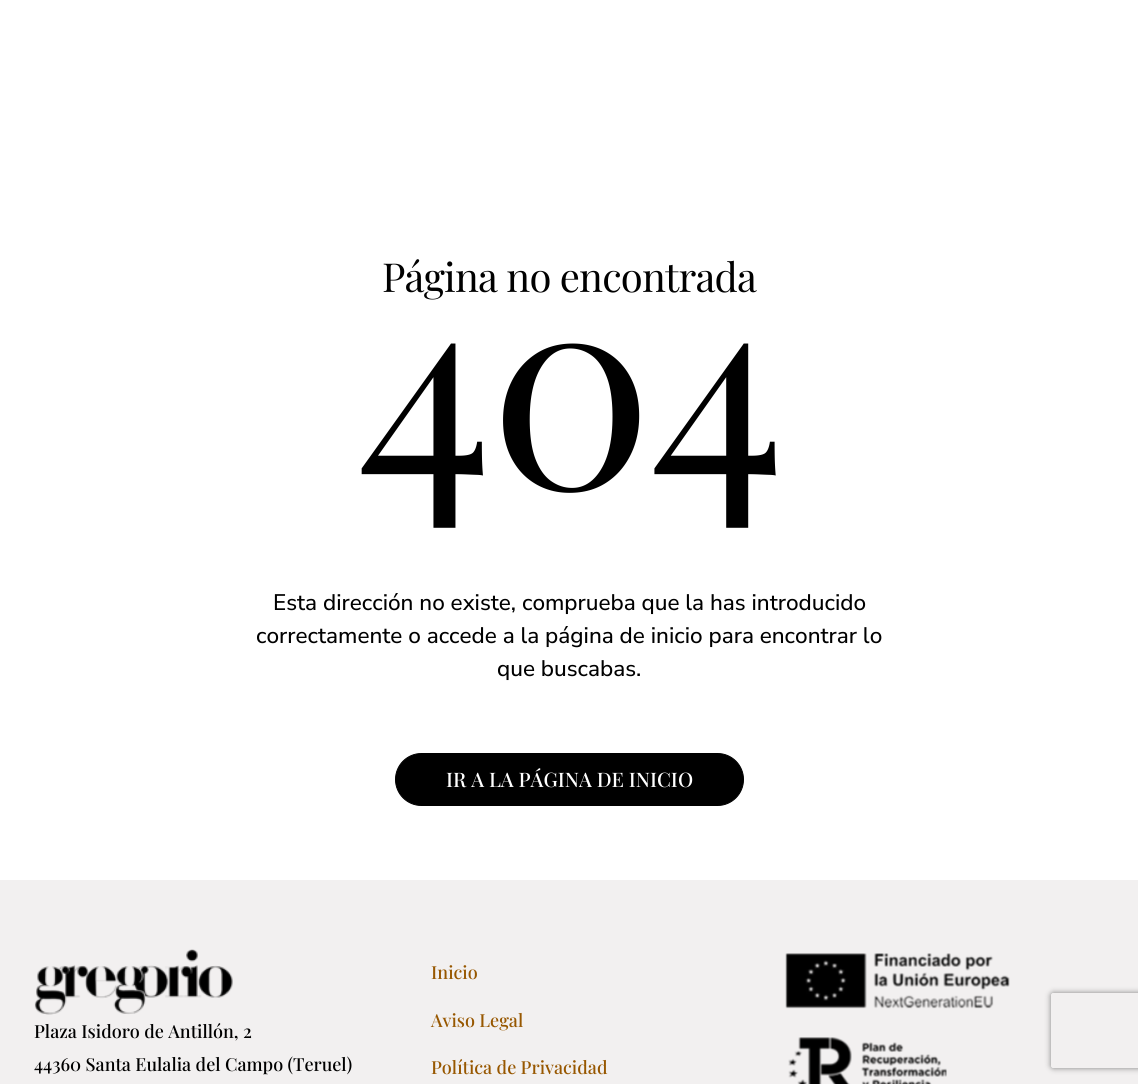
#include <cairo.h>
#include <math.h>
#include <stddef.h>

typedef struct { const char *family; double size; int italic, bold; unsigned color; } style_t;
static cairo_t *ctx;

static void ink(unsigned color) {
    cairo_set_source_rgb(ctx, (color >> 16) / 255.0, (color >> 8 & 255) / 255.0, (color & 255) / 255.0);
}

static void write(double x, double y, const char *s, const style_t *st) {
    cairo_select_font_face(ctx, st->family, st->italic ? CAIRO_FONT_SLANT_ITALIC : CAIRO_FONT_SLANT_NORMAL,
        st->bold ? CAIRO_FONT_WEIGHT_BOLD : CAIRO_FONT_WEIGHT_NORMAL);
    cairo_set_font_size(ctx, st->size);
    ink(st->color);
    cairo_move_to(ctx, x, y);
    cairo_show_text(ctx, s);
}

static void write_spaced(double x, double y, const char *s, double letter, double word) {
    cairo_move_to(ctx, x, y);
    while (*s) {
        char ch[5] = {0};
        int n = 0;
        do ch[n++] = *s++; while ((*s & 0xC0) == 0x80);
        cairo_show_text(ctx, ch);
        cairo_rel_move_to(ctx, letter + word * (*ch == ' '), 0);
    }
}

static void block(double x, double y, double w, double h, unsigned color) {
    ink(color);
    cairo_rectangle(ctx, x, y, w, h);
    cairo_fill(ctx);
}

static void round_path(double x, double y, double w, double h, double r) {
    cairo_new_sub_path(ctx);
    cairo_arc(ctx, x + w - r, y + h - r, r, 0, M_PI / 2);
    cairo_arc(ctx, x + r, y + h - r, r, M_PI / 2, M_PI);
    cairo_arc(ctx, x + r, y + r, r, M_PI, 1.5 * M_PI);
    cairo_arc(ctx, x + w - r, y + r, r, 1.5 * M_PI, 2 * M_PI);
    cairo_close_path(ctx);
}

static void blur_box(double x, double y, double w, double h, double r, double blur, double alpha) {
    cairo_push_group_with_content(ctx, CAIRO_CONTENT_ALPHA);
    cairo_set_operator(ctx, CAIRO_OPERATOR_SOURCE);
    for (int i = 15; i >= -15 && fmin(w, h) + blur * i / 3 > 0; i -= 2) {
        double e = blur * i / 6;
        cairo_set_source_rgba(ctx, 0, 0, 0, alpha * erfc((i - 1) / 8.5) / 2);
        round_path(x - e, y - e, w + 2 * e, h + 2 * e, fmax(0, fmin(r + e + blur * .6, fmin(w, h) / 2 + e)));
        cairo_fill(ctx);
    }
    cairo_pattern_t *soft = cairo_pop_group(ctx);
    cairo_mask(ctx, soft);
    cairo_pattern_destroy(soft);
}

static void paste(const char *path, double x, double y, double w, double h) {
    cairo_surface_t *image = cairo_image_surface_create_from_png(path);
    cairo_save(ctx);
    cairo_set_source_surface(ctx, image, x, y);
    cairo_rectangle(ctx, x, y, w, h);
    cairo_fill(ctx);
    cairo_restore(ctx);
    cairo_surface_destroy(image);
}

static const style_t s1 = {"Nunito Sans Medium", 22.5, 0, 0, 0x000000};
static const style_t s2 = {"Playfair Display Medium", 20, 0, 0, 0xffffff};
static const style_t s3 = {"Playfair Display Medium", 18, 0, 0, 0x000000};
static const style_t s4 = {"Playfair Display Medium", 18, 0, 0, 0x975700};

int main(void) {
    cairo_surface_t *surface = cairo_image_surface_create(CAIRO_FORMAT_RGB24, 1138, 1084);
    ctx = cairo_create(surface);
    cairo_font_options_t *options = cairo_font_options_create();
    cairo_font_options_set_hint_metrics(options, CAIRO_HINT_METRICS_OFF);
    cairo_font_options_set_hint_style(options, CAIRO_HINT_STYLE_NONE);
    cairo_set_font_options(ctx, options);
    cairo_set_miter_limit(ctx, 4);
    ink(0xffffff);
    cairo_paint(ctx);
    cairo_select_font_face(ctx, "Playfair Display", CAIRO_FONT_SLANT_NORMAL, CAIRO_FONT_WEIGHT_NORMAL);
    cairo_set_font_size(ctx, 40);
    ink(0x000000);
    write_spaced(382, 292, "Página no encontrada", -0.8, 0);
    cairo_set_font_size(ctx, 275);
    write_spaced(357, 489, "404", -4, 0);
    write(273, 610, "Esta dirección no existe, comprueba que la has introducido", &s1);
    write(256, 643, "correctamente o accede a la página de inicio para encontrar lo", &s1);
    write(497, 676, "que buscabas.", &s1);
    round_path(395.5, 753.5, 348, 52, 26);
    cairo_fill_preserve(ctx);
    cairo_set_line_width(ctx, 1);
    cairo_stroke(ctx);
    write(446, 787, "IR A LA PÁGINA DE INICIO", &s2);
    block(0, 880, 1138, 204, 0xf2f0f0);
    paste("pic1.png", 34, 949, 199, 66);
    write(34, 1038, "Plaza Isidoro de Antillón, 2", &s3);
    write(34, 1071, "44360 Santa Eulalia del Campo (Teruel)", &s3);
    write(431, 979, "Inicio", &s4);
    write(431, 1027, "Aviso Legal", &s4);
    write(431, 1074, "Política de Privacidad", &s4);
    paste("pic2.png", 785, 953, 225, 56);
    paste("pic3.png", 788, 1037, 159, 47);
    cairo_save(ctx);
    cairo_set_fill_rule(ctx, CAIRO_FILL_RULE_EVEN_ODD);
    cairo_new_path(ctx);
    cairo_move_to(ctx, 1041, 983);
    cairo_line_to(ctx, 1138, 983);
    cairo_line_to(ctx, 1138, 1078);
    cairo_line_to(ctx, 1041, 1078);
    cairo_close_path(ctx);
    cairo_move_to(ctx, 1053.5, 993);
    cairo_line_to(ctx, 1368.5, 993);
    cairo_curve_to(ctx, 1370, 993, 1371, 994, 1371, 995.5);
    cairo_line_to(ctx, 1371, 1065.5);
    cairo_curve_to(ctx, 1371, 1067, 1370, 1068, 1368.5, 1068);
    cairo_line_to(ctx, 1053.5, 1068);
    cairo_curve_to(ctx, 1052, 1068, 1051, 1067, 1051, 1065.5);
    cairo_line_to(ctx, 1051, 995.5);
    cairo_curve_to(ctx, 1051, 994, 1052, 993, 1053.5, 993);
    cairo_close_path(ctx);
    cairo_clip(ctx);
    ink(0x808080);
    blur_box(1051, 993, 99, 75, 2.5, 3, 1);
    cairo_restore(ctx);
    cairo_surface_write_to_png(surface, "screenshot.png");
    cairo_font_options_destroy(options);
    cairo_destroy(ctx);
    cairo_surface_destroy(surface);
    return 0;
}
